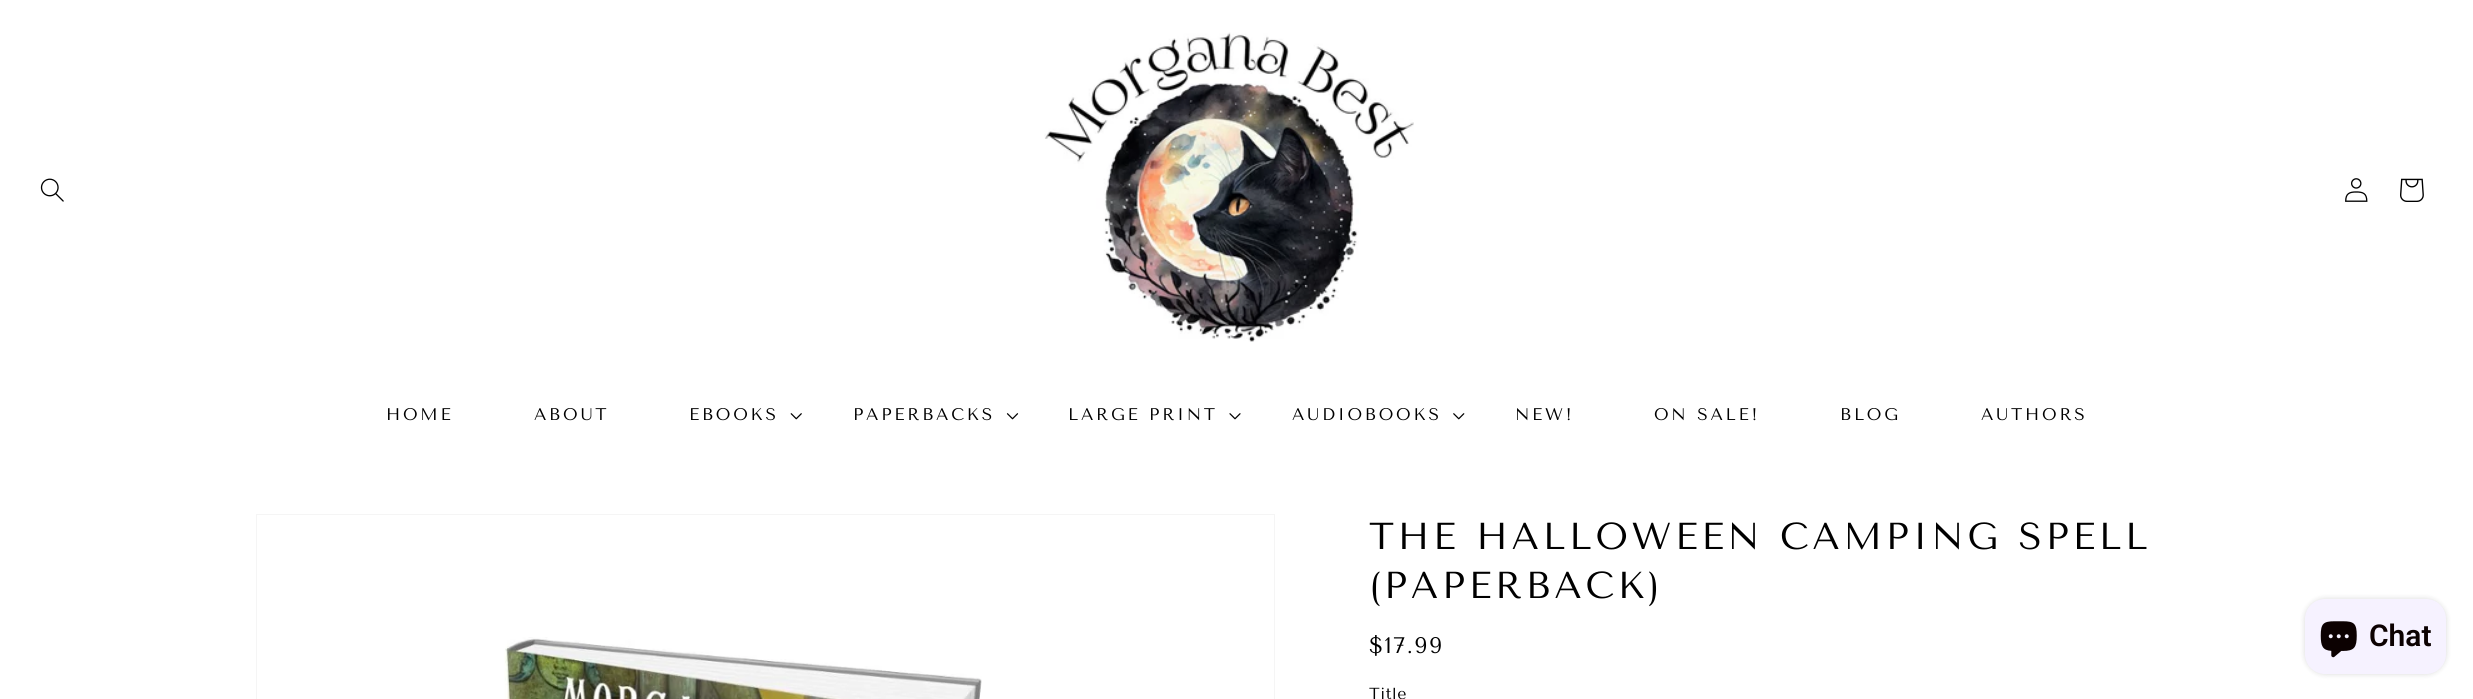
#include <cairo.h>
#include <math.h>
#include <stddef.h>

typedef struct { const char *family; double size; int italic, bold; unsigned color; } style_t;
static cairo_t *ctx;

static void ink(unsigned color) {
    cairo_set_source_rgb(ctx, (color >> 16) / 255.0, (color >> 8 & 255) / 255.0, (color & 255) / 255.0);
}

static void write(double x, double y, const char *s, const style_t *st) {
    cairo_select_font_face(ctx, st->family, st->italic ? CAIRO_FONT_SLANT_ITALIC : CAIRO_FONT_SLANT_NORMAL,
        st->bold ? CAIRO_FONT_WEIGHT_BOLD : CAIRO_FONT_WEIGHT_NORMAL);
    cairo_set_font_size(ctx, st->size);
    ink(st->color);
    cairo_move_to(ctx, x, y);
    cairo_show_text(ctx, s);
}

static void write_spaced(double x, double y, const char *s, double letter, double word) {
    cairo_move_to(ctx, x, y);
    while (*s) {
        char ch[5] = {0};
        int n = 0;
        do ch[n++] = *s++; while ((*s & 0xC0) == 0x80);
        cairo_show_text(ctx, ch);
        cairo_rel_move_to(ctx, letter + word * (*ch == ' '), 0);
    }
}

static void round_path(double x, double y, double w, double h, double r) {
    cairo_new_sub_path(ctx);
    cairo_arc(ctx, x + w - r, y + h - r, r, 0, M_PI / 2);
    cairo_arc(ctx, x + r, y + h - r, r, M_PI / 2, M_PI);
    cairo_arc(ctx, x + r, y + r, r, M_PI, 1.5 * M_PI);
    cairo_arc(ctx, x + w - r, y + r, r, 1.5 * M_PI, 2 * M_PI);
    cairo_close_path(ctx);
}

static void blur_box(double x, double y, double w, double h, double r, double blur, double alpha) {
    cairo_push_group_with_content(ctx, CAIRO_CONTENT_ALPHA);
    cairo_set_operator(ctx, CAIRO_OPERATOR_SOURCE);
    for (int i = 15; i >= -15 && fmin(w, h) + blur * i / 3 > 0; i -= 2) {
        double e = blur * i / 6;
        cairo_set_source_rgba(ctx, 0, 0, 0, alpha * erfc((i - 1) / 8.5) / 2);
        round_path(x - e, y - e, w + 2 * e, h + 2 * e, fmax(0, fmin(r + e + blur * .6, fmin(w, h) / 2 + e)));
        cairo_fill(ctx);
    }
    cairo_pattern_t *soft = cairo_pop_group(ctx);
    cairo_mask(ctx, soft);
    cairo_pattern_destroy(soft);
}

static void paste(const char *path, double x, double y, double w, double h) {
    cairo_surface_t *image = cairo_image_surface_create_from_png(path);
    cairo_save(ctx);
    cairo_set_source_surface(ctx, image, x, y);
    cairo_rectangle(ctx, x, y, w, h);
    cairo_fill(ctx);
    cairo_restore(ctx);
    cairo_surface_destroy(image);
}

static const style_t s1 = {"Roboto SemiBold", 30, 0, 0, 0x0c0101};

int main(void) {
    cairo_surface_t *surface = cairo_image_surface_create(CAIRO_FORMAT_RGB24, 2473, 699);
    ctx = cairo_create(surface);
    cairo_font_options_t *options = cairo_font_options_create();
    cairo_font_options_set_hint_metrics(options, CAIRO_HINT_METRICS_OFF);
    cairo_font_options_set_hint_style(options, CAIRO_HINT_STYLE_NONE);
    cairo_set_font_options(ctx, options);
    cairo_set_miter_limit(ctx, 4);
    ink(0xffffff);
    cairo_paint(ctx);
    paste("pic1.png", 40, 178, 24, 24);
    paste("pic2.png", 1044, 32, 370, 310);
    paste("pic3.png", 2345, 178, 23, 24);
    paste("pic4.png", 2400, 178, 24, 24);
    cairo_select_font_face(ctx, "Tenor Sans", CAIRO_FONT_SLANT_NORMAL, CAIRO_FONT_WEIGHT_NORMAL);
    cairo_set_font_size(ctx, 16.9);
    ink(0x000000);
    write_spaced(386, 420, "HOME", 2.75, 0);
    write_spaced(534, 420, "ABOUT", 2.75, 0);
    write_spaced(689, 420, "EBOOKS", 2.75, 0);
    paste("pic5.png", 790, 413, 12, 7);
    write_spaced(853, 420, "PAPERBACKS", 2.75, 0);
    paste("pic6.png", 1006, 413, 13, 7);
    write_spaced(1068, 420, "LARGE PRINT", 2.75, 0);
    paste("pic7.png", 1229, 413, 12, 7);
    write_spaced(1292, 420, "AUDIOBOOKS", 2.75, 0);
    paste("pic8.png", 1453, 413, 12, 7);
    write_spaced(1515, 420, "NEW!", 2.75, 0);
    write_spaced(1654, 420, "ON SALE!", 2.75, 0);
    write_spaced(1840, 420, "BLOG", 2.75, 0);
    write_spaced(1981, 420, "AUTHORS", 2.75, 0);
    cairo_rectangle(ctx, 256.5, 514.5, 1018, 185);
    ink(0xf5f5f5);
    cairo_set_line_width(ctx, 1);
    cairo_stroke(ctx);
    paste("pic9.png", 504, 637, 478, 62);
    cairo_set_font_size(ctx, 37.5);
    ink(0x000000);
    write_spaced(1369, 549, "THE HALLOWEEN CAMPING SPELL", 3.75, 0);
    write_spaced(1369, 598, "(PAPERBACK)", 3.75, 0);
    cairo_set_font_size(ctx, 22.5);
    write_spaced(1369, 653, "$17.99", 1.5, 0);
    cairo_set_font_size(ctx, 16);
    write_spaced(1369, 699, "Title", 0.5, 0);
    ink(0x000000);
    blur_box(2305, 599, 141, 75, 20, 3, 0.15);
    ink(0xf6f2ff);
    round_path(2305, 599, 141, 75, 20);
    cairo_fill(ctx);
    paste("pic10.png", 2320, 621, 37, 37);
    write(2369, 646, "Chat", &s1);
    cairo_surface_write_to_png(surface, "screenshot.png");
    cairo_font_options_destroy(options);
    cairo_destroy(ctx);
    cairo_surface_destroy(surface);
    return 0;
}
